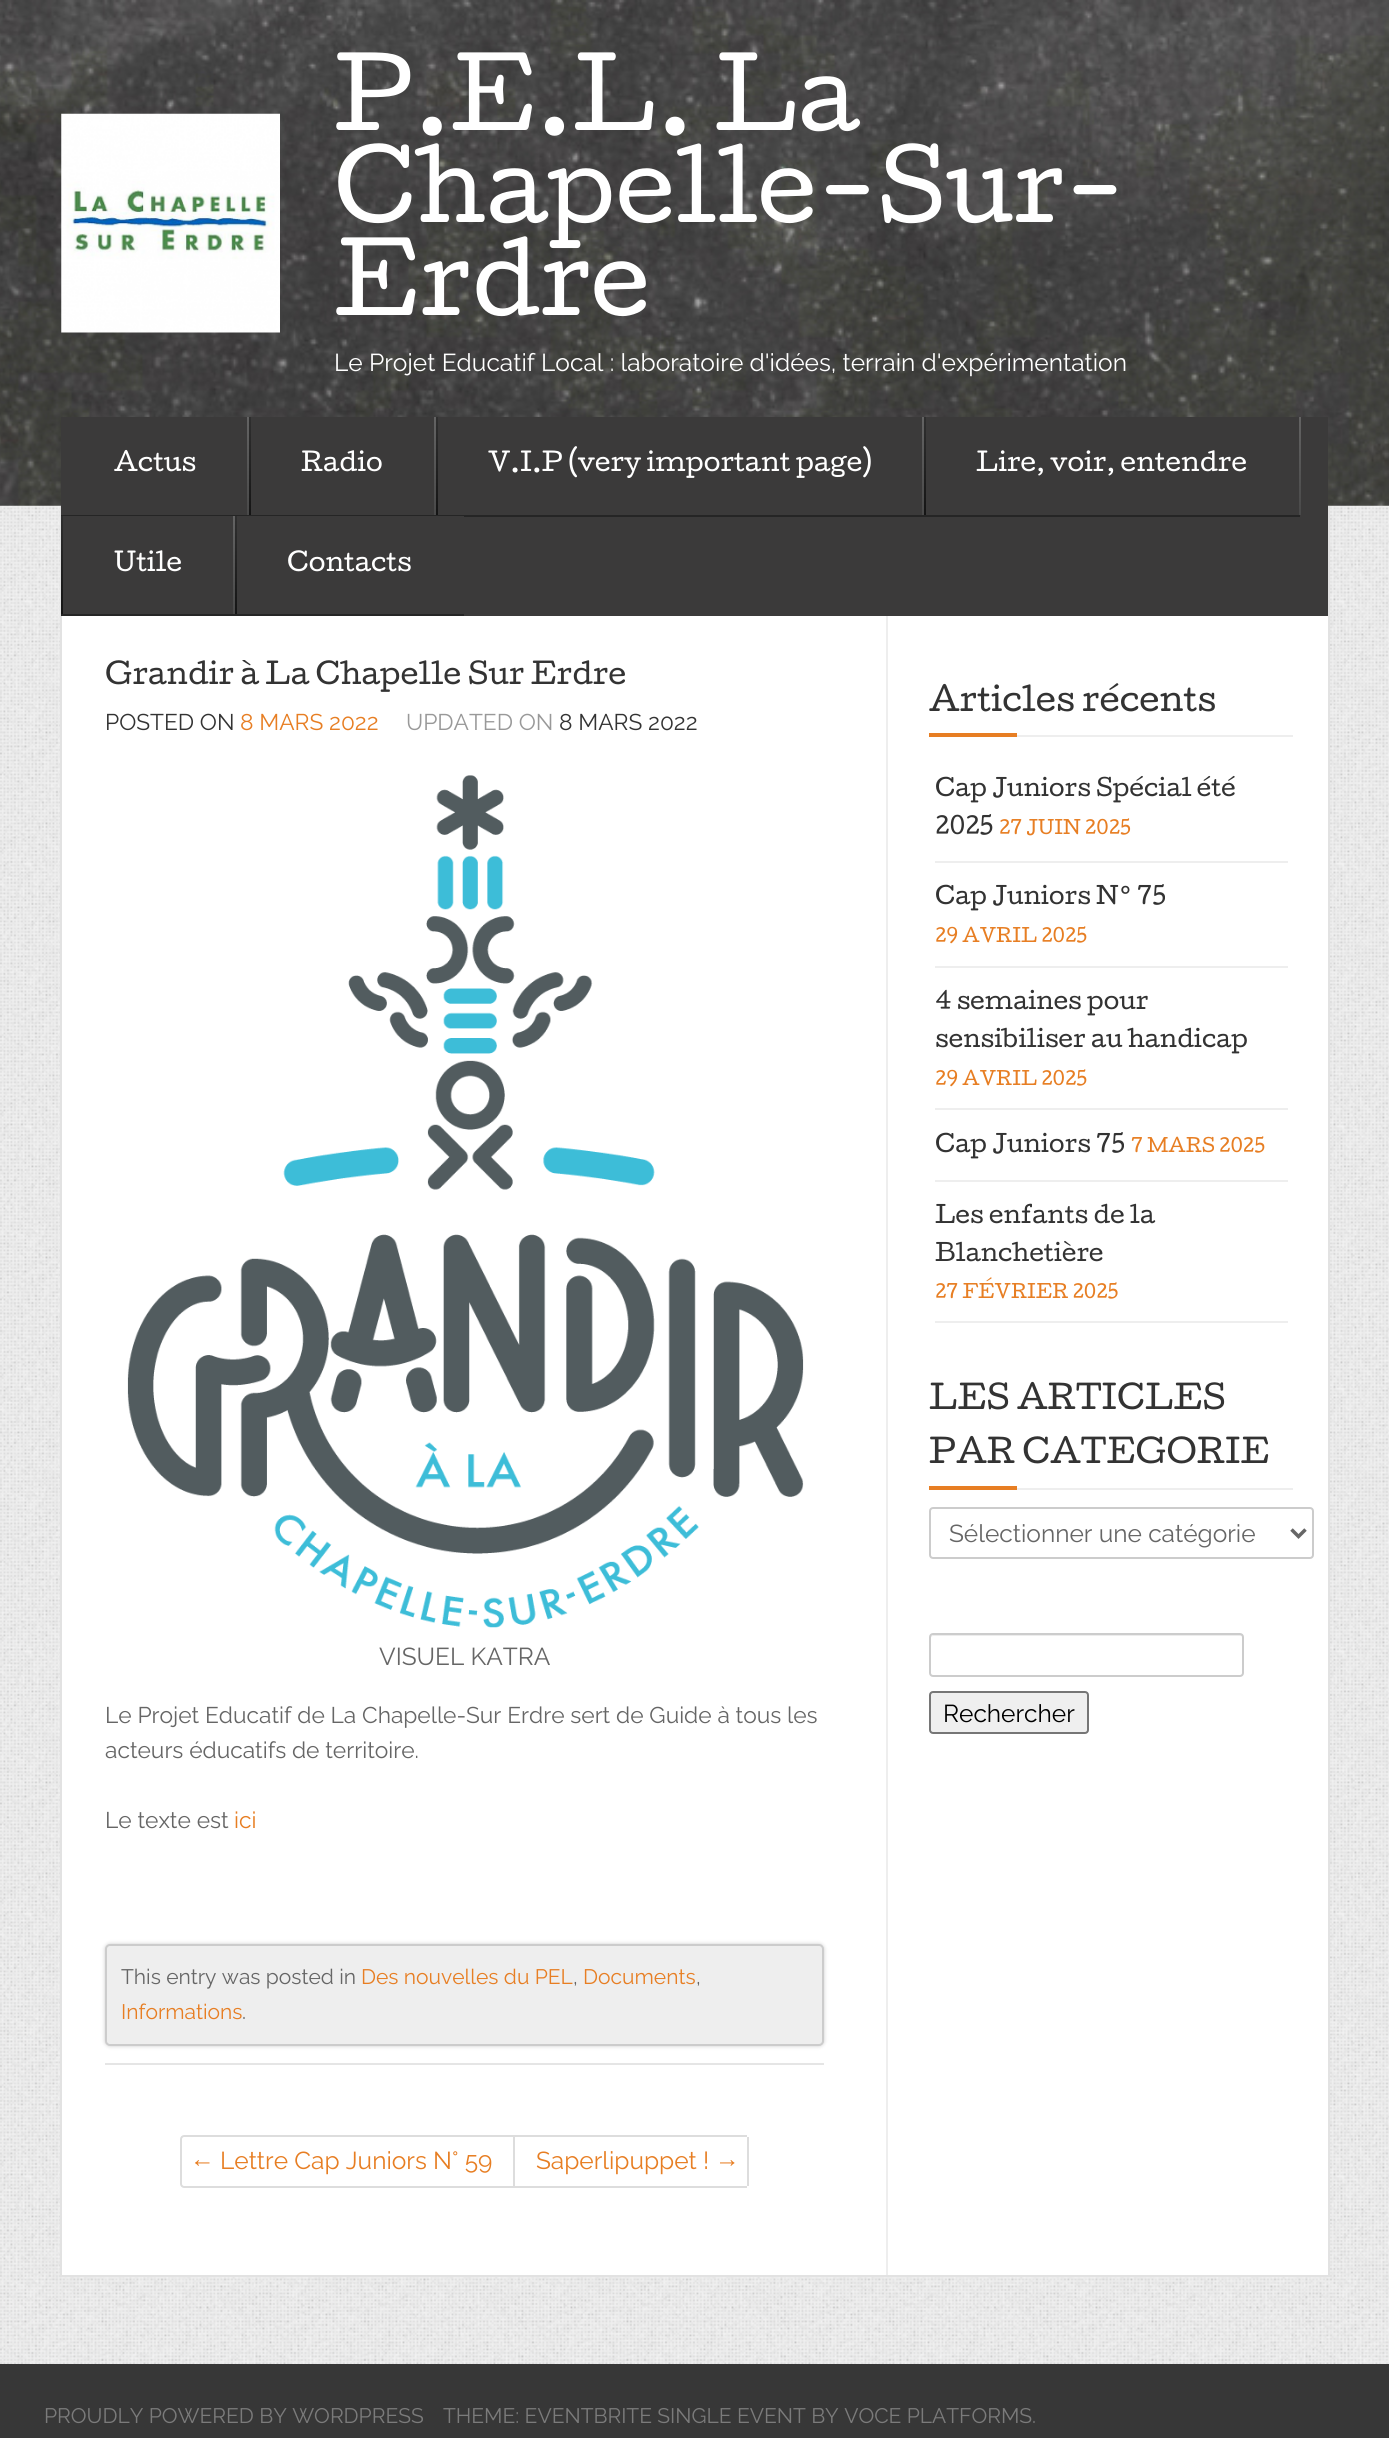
#include <cairo.h>
#include <math.h>
#include <stddef.h>

typedef struct { const char *family; double size; int italic, bold; unsigned color; } style_t;
static cairo_t *ctx;

static void ink(unsigned color) {
    cairo_set_source_rgb(ctx, (color >> 16) / 255.0, (color >> 8 & 255) / 255.0, (color & 255) / 255.0);
}

static void write(double x, double y, const char *s, const style_t *st) {
    cairo_select_font_face(ctx, st->family, st->italic ? CAIRO_FONT_SLANT_ITALIC : CAIRO_FONT_SLANT_NORMAL,
        st->bold ? CAIRO_FONT_WEIGHT_BOLD : CAIRO_FONT_WEIGHT_NORMAL);
    cairo_set_font_size(ctx, st->size);
    ink(st->color);
    cairo_move_to(ctx, x, y);
    cairo_show_text(ctx, s);
}

static void block(double x, double y, double w, double h, unsigned color) {
    ink(color);
    cairo_rectangle(ctx, x, y, w, h);
    cairo_fill(ctx);
}

static void round_path(double x, double y, double w, double h, double r) {
    cairo_new_sub_path(ctx);
    cairo_arc(ctx, x + w - r, y + h - r, r, 0, M_PI / 2);
    cairo_arc(ctx, x + r, y + h - r, r, M_PI / 2, M_PI);
    cairo_arc(ctx, x + r, y + r, r, M_PI, 1.5 * M_PI);
    cairo_arc(ctx, x + w - r, y + r, r, 1.5 * M_PI, 2 * M_PI);
    cairo_close_path(ctx);
}

static void blur_box(double x, double y, double w, double h, double r, double blur, double alpha) {
    cairo_push_group_with_content(ctx, CAIRO_CONTENT_ALPHA);
    cairo_set_operator(ctx, CAIRO_OPERATOR_SOURCE);
    for (int i = 15; i >= -15 && fmin(w, h) + blur * i / 3 > 0; i -= 2) {
        double e = blur * i / 6;
        cairo_set_source_rgba(ctx, 0, 0, 0, alpha * erfc((i - 1) / 8.5) / 2);
        round_path(x - e, y - e, w + 2 * e, h + 2 * e, fmax(0, fmin(r + e + blur * .6, fmin(w, h) / 2 + e)));
        cairo_fill(ctx);
    }
    cairo_pattern_t *soft = cairo_pop_group(ctx);
    cairo_mask(ctx, soft);
    cairo_pattern_destroy(soft);
}

static void paste(const char *path, double x, double y, double w, double h) {
    cairo_surface_t *image = cairo_image_surface_create_from_png(path);
    cairo_save(ctx);
    cairo_set_source_surface(ctx, image, x, y);
    cairo_rectangle(ctx, x, y, w, h);
    cairo_fill(ctx);
    cairo_restore(ctx);
    cairo_surface_destroy(image);
}

static const style_t s1 = {"Cutive", 92.75, 0, 0, 0xffffff};
static const style_t s2 = {"Raleway", 24.5, 0, 0, 0xffffff};
static const style_t s3 = {"Cutive", 24.5, 0, 0, 0xffffff};
static const style_t s4 = {"Cutive", 28, 0, 0, 0x333333};
static const style_t s5 = {"Raleway", 22.75, 0, 0, 0x333333};
static const style_t s6 = {"Raleway", 22.75, 0, 0, 0xe77e23};
static const style_t s7 = {"Raleway", 22.75, 0, 0, 0x999999};
static const style_t s8 = {"Raleway", 24.5, 0, 0, 0x666666};
static const style_t s9 = {"Raleway", 22.75, 0, 0, 0x666666};
static const style_t s10 = {"Raleway", 21, 0, 0, 0x666666};
static const style_t s11 = {"Raleway", 21, 0, 0, 0xe77e23};
static const style_t s12 = {"Liberation Sans", 24.5, 0, 0, 0xe77e23};
static const style_t s13 = {"Raleway", 24.5, 0, 0, 0xe77e23};
static const style_t s14 = {"Cutive", 31.5, 0, 0, 0x333333};
static const style_t s15 = {"Cutive", 22.75, 0, 0, 0x333333};
static const style_t s16 = {"Cutive", 17.9, 0, 0, 0xe77e23};
static const style_t s17 = {"Raleway", 24.5, 0, 0, 0x000000};
static const style_t s18 = {"Raleway", 21, 0, 0, 0x7b7b7b};

int main(void) {
    cairo_surface_t *surface = cairo_image_surface_create(CAIRO_FORMAT_RGB24, 1389, 2438);
    ctx = cairo_create(surface);
    cairo_font_options_t *options = cairo_font_options_create();
    cairo_font_options_set_hint_metrics(options, CAIRO_HINT_METRICS_OFF);
    cairo_font_options_set_hint_style(options, CAIRO_HINT_STYLE_NONE);
    cairo_set_font_options(ctx, options);
    cairo_set_miter_limit(ctx, 4);
    cairo_pattern_t *gradient;
    ink(0xffffff);
    cairo_paint(ctx);
    paste("pic1.png", 0, 505, 1389, 1859);
    paste("pic2.png", 0, 0, 1389, 506);
    paste("pic3.png", 61, 113, 219, 220);
    write(334, 130, "P.E.L. La", &s1);
    write(334, 222, "Chapelle-Sur-", &s1);
    write(334, 315, "Erdre", &s1);
    write(334, 371, "Le Projet Educatif Local : laboratoire d'idées, terrain d'expérimentation", &s2);
    block(62, 616, 1266, 1659, 0xffffff);
    block(1328, 506, 2, 1771, 0xe2e2e2);
    block(60, 2275, 1270, 2, 0xe2e2e2);
    block(60, 506, 2, 1771, 0xe2e2e2);
    block(61, 417, 1267, 199, 0x3b3a3a);
    block(61, 515, 375, 1, 0x252525);
    write(114, 471, "Actus", &s3);
    gradient = cairo_pattern_create_linear(248, 417, 248, 515);
    cairo_pattern_add_color_stop_rgba(gradient, 0, 0.388, 0.388, 0.388, 1);
    cairo_pattern_add_color_stop_rgba(gradient, 1, 0.286, 0.286, 0.286, 1);
    cairo_set_source(ctx, gradient);
    cairo_pattern_destroy(gradient);
    cairo_rectangle(ctx, 247, 417, 2, 98);
    cairo_fill(ctx);
    gradient = cairo_pattern_create_linear(249, 417, 249, 515);
    cairo_pattern_add_color_stop_rgba(gradient, 0, 0.184, 0.184, 0.184, 1);
    cairo_pattern_add_color_stop_rgba(gradient, 1, 0.082, 0.082, 0.082, 1);
    cairo_set_source(ctx, gradient);
    cairo_pattern_destroy(gradient);
    cairo_rectangle(ctx, 249, 417, 2, 98);
    cairo_fill(ctx);
    write(301, 471, "Radio", &s3);
    gradient = cairo_pattern_create_linear(435, 417, 435, 515);
    cairo_pattern_add_color_stop_rgba(gradient, 0, 0.388, 0.388, 0.388, 1);
    cairo_pattern_add_color_stop_rgba(gradient, 1, 0.286, 0.286, 0.286, 1);
    cairo_set_source(ctx, gradient);
    cairo_pattern_destroy(gradient);
    cairo_rectangle(ctx, 434, 417, 2, 98);
    cairo_fill(ctx);
    block(436, 515, 864, 2, 0x252525);
    gradient = cairo_pattern_create_linear(437, 417, 437, 515);
    cairo_pattern_add_color_stop_rgba(gradient, 0, 0.184, 0.184, 0.184, 1);
    cairo_pattern_add_color_stop_rgba(gradient, 1, 0.082, 0.082, 0.082, 1);
    cairo_set_source(ctx, gradient);
    cairo_pattern_destroy(gradient);
    cairo_rectangle(ctx, 436, 417, 2, 98);
    cairo_fill(ctx);
    write(488, 471, "V.I.P (very important page)", &s3);
    gradient = cairo_pattern_create_linear(923, 417, 923, 515);
    cairo_pattern_add_color_stop_rgba(gradient, 0, 0.388, 0.388, 0.388, 1);
    cairo_pattern_add_color_stop_rgba(gradient, 1, 0.286, 0.286, 0.286, 1);
    cairo_set_source(ctx, gradient);
    cairo_pattern_destroy(gradient);
    cairo_rectangle(ctx, 922, 417, 2, 98);
    cairo_fill(ctx);
    gradient = cairo_pattern_create_linear(925, 417, 925, 515);
    cairo_pattern_add_color_stop_rgba(gradient, 0, 0.184, 0.184, 0.184, 1);
    cairo_pattern_add_color_stop_rgba(gradient, 1, 0.082, 0.082, 0.082, 1);
    cairo_set_source(ctx, gradient);
    cairo_pattern_destroy(gradient);
    cairo_rectangle(ctx, 924, 417, 2, 98);
    cairo_fill(ctx);
    write(976, 471, "Lire, voir, entendre", &s3);
    gradient = cairo_pattern_create_linear(1299, 417, 1299, 515);
    cairo_pattern_add_color_stop_rgba(gradient, 0, 0.388, 0.388, 0.388, 1);
    cairo_pattern_add_color_stop_rgba(gradient, 1, 0.286, 0.286, 0.286, 1);
    cairo_set_source(ctx, gradient);
    cairo_pattern_destroy(gradient);
    cairo_rectangle(ctx, 1299, 417, 2, 98);
    cairo_fill(ctx);
    block(61, 614, 403, 2, 0x252525);
    gradient = cairo_pattern_create_linear(62, 516, 62, 614);
    cairo_pattern_add_color_stop_rgba(gradient, 0, 0.184, 0.184, 0.184, 1);
    cairo_pattern_add_color_stop_rgba(gradient, 1, 0.082, 0.082, 0.082, 1);
    cairo_set_source(ctx, gradient);
    cairo_pattern_destroy(gradient);
    cairo_rectangle(ctx, 61, 516, 2, 98);
    cairo_fill(ctx);
    write(114, 571, "Utile", &s3);
    gradient = cairo_pattern_create_linear(234, 516, 234, 614);
    cairo_pattern_add_color_stop_rgba(gradient, 0, 0.388, 0.388, 0.388, 1);
    cairo_pattern_add_color_stop_rgba(gradient, 1, 0.286, 0.286, 0.286, 1);
    cairo_set_source(ctx, gradient);
    cairo_pattern_destroy(gradient);
    cairo_rectangle(ctx, 233, 516, 2, 98);
    cairo_fill(ctx);
    block(436, 516, 28, 1, 0x3b3a3a);
    gradient = cairo_pattern_create_linear(235, 516, 235, 614);
    cairo_pattern_add_color_stop_rgba(gradient, 0, 0.184, 0.184, 0.184, 1);
    cairo_pattern_add_color_stop_rgba(gradient, 1, 0.082, 0.082, 0.082, 1);
    cairo_set_source(ctx, gradient);
    cairo_pattern_destroy(gradient);
    cairo_rectangle(ctx, 235, 516, 2, 98);
    cairo_fill(ctx);
    write(287, 571, "Contacts", &s3);
    block(886, 616, 2, 1659, 0xeeeeee);
    cairo_save(ctx);
    cairo_rectangle(ctx, 105, 660, 719, 1284);
    cairo_clip(ctx);
    write(105, 684, "Grandir à La Chapelle Sur Erdre", &s4);
    cairo_restore(ctx);
    write(105, 730, "POSTED ON", &s5);
    write(240, 730, "8 MARS 2022", &s6);
    write(406, 730, "UPDATED ON", &s7);
    write(559, 730, "8 MARS 2022", &s5);
    paste("pic4.png", 127, 775, 677, 853);
    write(379, 1665, "VISUEL KATRA", &s8);
    write(105, 1723, "Le Projet Educatif de La Chapelle-Sur Erdre sert de Guide à tous les", &s9);
    write(105, 1758, "acteurs éducatifs de territoire.", &s9);
    write(105, 1828, "Le texte est", &s9);
    write(234, 1828, "ici", &s6);
    ink(0x999999);
    blur_box(105, 1944, 719, 102, 5, 2, 0.5);
    ink(0xeeeeee);
    round_path(106, 1945, 717, 100, 4);
    cairo_fill_preserve(ctx);
    ink(0xcccccc);
    cairo_stroke(ctx);
    write(121, 1984, "This entry was posted in", &s10);
    write(361, 1984, "Des nouvelles du PEL", &s11);
    write(573, 1984, ",", &s10);
    write(583, 1984, "Documents", &s11);
    write(696, 1984, ",", &s10);
    write(121, 2019, "Informations", &s11);
    write(242, 2019, ".", &s10);
    block(105, 2063, 719, 2, 0xe5e5e5);
    cairo_new_path(ctx);
    cairo_move_to(ctx, 184, 2136);
    cairo_line_to(ctx, 514, 2136);
    cairo_line_to(ctx, 514, 2187);
    cairo_line_to(ctx, 184, 2187);
    cairo_curve_to(ctx, 182.5, 2187, 181, 2185.5, 181, 2184);
    cairo_line_to(ctx, 181, 2139);
    cairo_curve_to(ctx, 181, 2137.5, 182.5, 2136, 184, 2136);
    cairo_close_path(ctx);
    ink(0xdddddd);
    cairo_stroke(ctx);
    write(190, 2167, "←", &s12);
    write(220, 2169, "Lettre Cap Juniors N° 59", &s13);
    block(515, 2135, 232, 2, 0xdddddd);
    block(747, 2137, 2, 49, 0xdddddd);
    block(515, 2186, 232, 2, 0xdddddd);
    write(536, 2169, "Saperlipuppet !", &s13);
    write(715, 2167, "→", &s12);
    block(1017, 735, 276, 2, 0xeeeeee);
    write(929, 711, "Articles récents", &s14);
    block(929, 733, 88, 4, 0xe77e23);
    block(935, 861, 353, 2, 0xeeeeee);
    write(935, 796, "Cap Juniors Spécial été", &s15);
    write(935, 834, "2025", &s15);
    write(999, 834, "27 JUIN 2025", &s16);
    block(935, 966, 353, 2, 0xeeeeee);
    write(935, 904, "Cap Juniors N° 75", &s15);
    write(935, 942, "29 AVRIL 2025", &s16);
    block(935, 1108, 353, 2, 0xeeeeee);
    write(935, 1009, "4 semaines pour", &s15);
    write(935, 1047, "sensibiliser au handicap", &s15);
    write(935, 1085, "29 AVRIL 2025", &s16);
    block(935, 1180, 353, 2, 0xeeeeee);
    write(935, 1152, "Cap Juniors 75", &s15);
    write(1131, 1152, "7 MARS 2025", &s16);
    block(935, 1321, 353, 2, 0xeeeeee);
    write(935, 1223, "Les enfants de la", &s15);
    write(935, 1261, "Blanchetière", &s15);
    write(935, 1298, "27 FÉVRIER 2025", &s16);
    block(1017, 1488, 276, 2, 0xeeeeee);
    write(929, 1409, "LES ARTICLES", &s14);
    write(929, 1463, "PAR CATEGORIE", &s14);
    block(929, 1486, 88, 4, 0xe77e23);
    round_path(930, 1508, 383, 50, 3);
    ink(0xcccccc);
    cairo_stroke(ctx);
    cairo_new_path(ctx);
    cairo_move_to(ctx, 1291.5, 1529.5);
    cairo_line_to(ctx, 1298.5, 1536.5);
    cairo_line_to(ctx, 1305.5, 1529.5);
    ink(0x666666);
    cairo_set_line_width(ctx, 3.5);
    cairo_stroke(ctx);
    write(949, 1542, "Sélectionner une catégorie", &s8);
    ink(0xececec);
    cairo_new_path(ctx);
    cairo_move_to(ctx, 933, 1636);
    cairo_line_to(ctx, 1241, 1636);
    cairo_curve_to(ctx, 1242, 1636, 1242, 1637, 1242, 1638);
    cairo_line_to(ctx, 1242, 1675);
    cairo_line_to(ctx, 1243, 1674);
    cairo_line_to(ctx, 1243, 1637);
    cairo_curve_to(ctx, 1243, 1636, 1242, 1635, 1241, 1635);
    cairo_line_to(ctx, 933, 1635);
    cairo_line_to(ctx, 931, 1636);
    cairo_line_to(ctx, 931, 1638);
    cairo_curve_to(ctx, 931, 1637, 932, 1636, 933, 1636);
    cairo_close_path(ctx);
    cairo_fill(ctx);
    round_path(930, 1634, 313, 42, 3);
    ink(0xcccccc);
    cairo_set_line_width(ctx, 2);
    cairo_stroke(ctx);
    ink(0xefefef);
    round_path(930, 1692, 158, 41, 3);
    cairo_fill_preserve(ctx);
    ink(0x767676);
    cairo_stroke(ctx);
    write(943, 1722, "Rechercher", &s17);
    block(0, 2364, 1389, 74, 0x373737);
    write(44, 2423, "PROUDLY POWERED BY WORDPRESS", &s18);
    write(443, 2423, "THEME: EVENTBRITE SINGLE EVENT BY VOCE PLATFORMS.", &s18);
    cairo_surface_write_to_png(surface, "screenshot.png");
    cairo_font_options_destroy(options);
    cairo_destroy(ctx);
    cairo_surface_destroy(surface);
    return 0;
}
